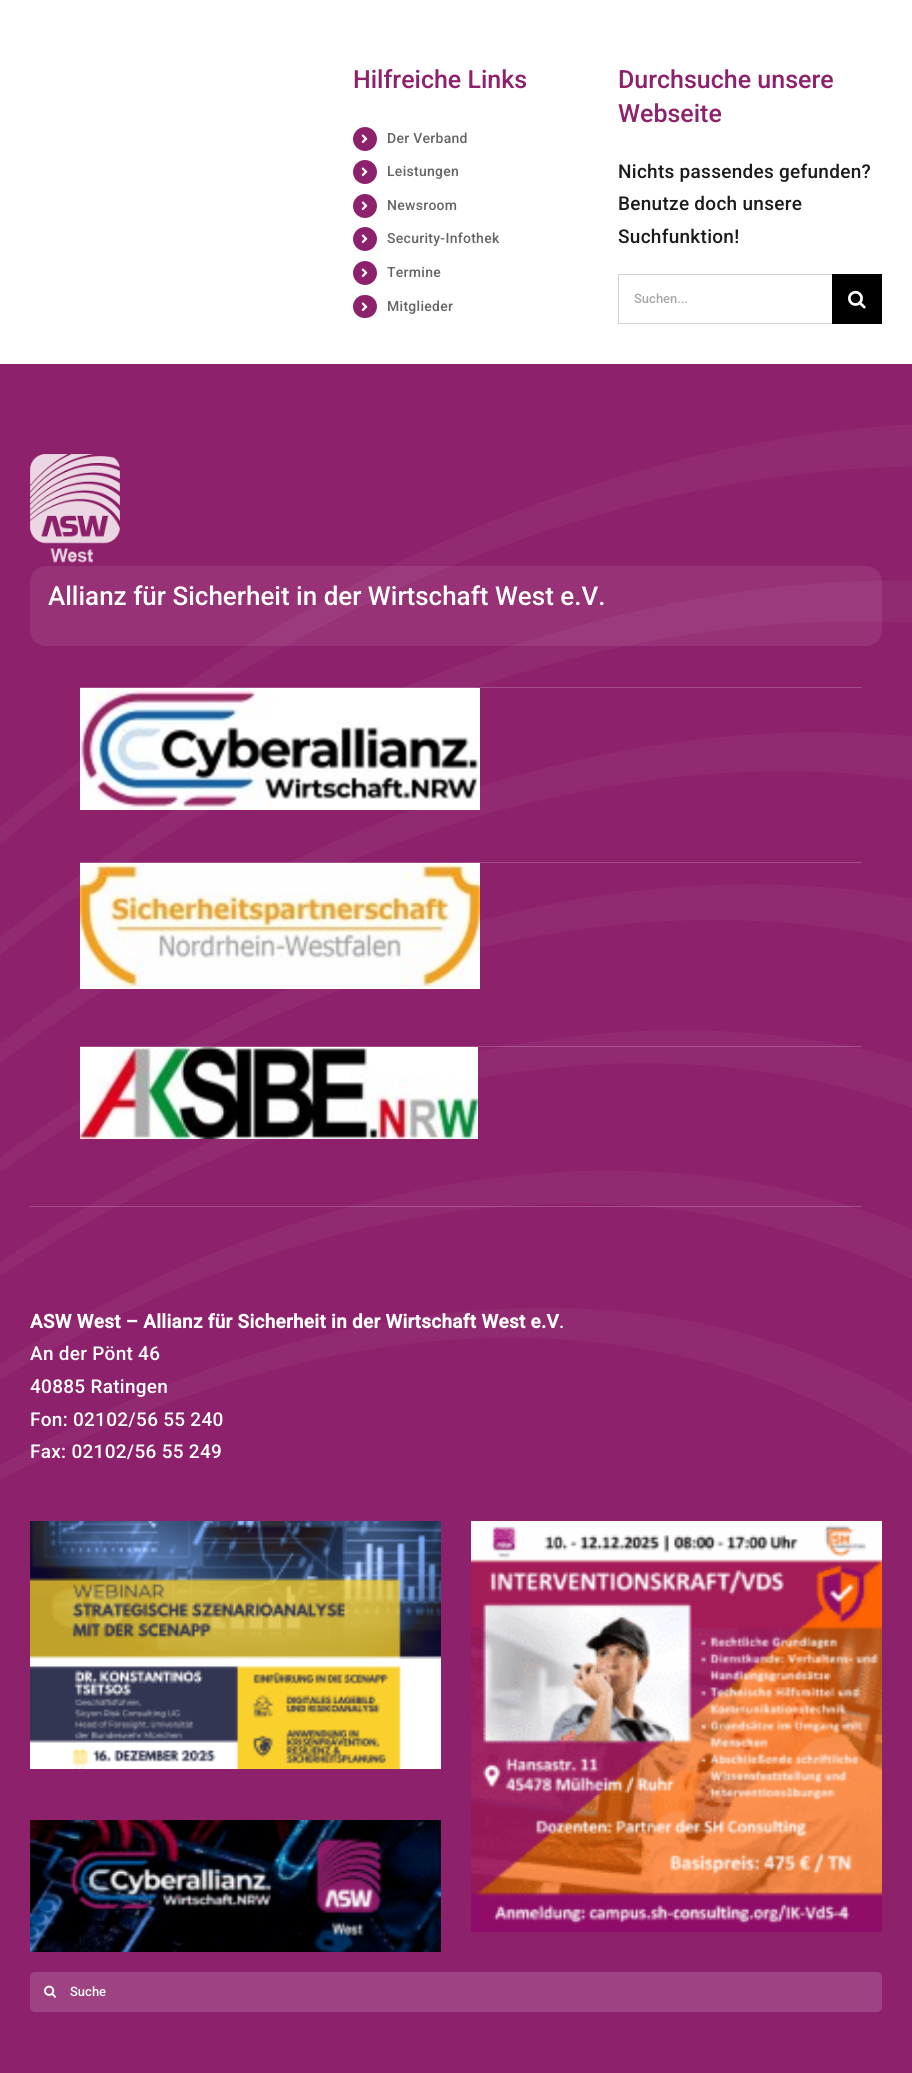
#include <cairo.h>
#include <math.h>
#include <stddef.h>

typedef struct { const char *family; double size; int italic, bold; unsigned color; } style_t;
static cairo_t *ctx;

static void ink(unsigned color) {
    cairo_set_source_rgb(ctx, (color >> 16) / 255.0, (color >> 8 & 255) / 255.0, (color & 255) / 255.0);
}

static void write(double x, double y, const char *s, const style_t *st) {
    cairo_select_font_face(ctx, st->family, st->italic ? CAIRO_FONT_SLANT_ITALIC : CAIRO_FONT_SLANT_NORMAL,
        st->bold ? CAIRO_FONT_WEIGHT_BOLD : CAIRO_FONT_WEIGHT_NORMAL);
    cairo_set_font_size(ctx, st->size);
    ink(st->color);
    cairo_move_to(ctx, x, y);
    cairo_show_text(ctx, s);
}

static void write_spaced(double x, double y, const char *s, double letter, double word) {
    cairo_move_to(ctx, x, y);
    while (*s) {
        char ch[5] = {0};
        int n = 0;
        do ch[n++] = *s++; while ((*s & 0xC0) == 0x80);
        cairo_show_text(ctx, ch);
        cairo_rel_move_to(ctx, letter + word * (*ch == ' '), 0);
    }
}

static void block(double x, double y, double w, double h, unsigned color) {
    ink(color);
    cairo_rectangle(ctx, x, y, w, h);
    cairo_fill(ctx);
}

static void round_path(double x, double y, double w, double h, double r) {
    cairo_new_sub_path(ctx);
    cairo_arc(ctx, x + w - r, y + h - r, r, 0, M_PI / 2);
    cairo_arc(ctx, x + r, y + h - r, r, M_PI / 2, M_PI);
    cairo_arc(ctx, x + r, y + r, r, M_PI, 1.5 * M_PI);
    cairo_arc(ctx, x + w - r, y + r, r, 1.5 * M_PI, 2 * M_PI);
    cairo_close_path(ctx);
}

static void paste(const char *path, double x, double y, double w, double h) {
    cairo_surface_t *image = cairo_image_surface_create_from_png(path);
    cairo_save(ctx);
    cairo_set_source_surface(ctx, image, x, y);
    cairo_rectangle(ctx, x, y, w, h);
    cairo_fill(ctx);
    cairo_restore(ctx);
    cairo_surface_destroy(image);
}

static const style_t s1 = {"Roboto Medium", 25, 0, 0, 0x8e216b};
static const style_t s2 = {"Roboto Medium", 13, 0, 0, 0xaaa9a9};
static const style_t s3 = {"Roboto Medium", 26, 0, 0, 0xffffff};
static const style_t s4 = {"Roboto Medium", 13, 0, 0, 0xffffff};

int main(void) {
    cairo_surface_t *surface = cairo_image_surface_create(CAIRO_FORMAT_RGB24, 912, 2073);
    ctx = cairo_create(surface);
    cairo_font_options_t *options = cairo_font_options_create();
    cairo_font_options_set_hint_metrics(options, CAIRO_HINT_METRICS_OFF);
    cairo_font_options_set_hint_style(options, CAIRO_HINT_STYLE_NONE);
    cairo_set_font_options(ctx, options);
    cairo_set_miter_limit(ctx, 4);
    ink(0xffffff);
    cairo_paint(ctx);
    write(353, 88, "Hilfreiche Links", &s1);
    cairo_new_path(ctx);
    cairo_arc(ctx, 365, 139, 12, 0, 2 * M_PI);
    cairo_fill(ctx);
    paste("pic1.png", 361, 134, 7, 10);
    cairo_set_font_size(ctx, 14);
    ink(0x666666);
    write_spaced(387, 143, "Der Verband", 0.28, 0);
    ink(0x8e216b);
    cairo_new_path(ctx);
    cairo_arc(ctx, 365, 172, 12, 0, 2 * M_PI);
    cairo_fill(ctx);
    paste("pic1.png", 361, 167, 7, 10);
    ink(0x666666);
    write_spaced(387, 176, "Leistungen", 0.28, 0);
    ink(0x8e216b);
    cairo_new_path(ctx);
    cairo_arc(ctx, 365, 206, 12, 0, 2 * M_PI);
    cairo_fill(ctx);
    paste("pic1.png", 361, 201, 7, 10);
    ink(0x666666);
    write_spaced(387, 210, "Newsroom", 0.28, 0);
    ink(0x8e216b);
    cairo_new_path(ctx);
    cairo_arc(ctx, 365, 239, 12, 0, 2 * M_PI);
    cairo_fill(ctx);
    paste("pic1.png", 361, 234, 7, 10);
    ink(0x666666);
    write_spaced(387, 243, "Security-Infothek", 0.28, 0);
    ink(0x8e216b);
    cairo_new_path(ctx);
    cairo_arc(ctx, 365, 273, 12, 0, 2 * M_PI);
    cairo_fill(ctx);
    paste("pic1.png", 361, 268, 7, 10);
    ink(0x666666);
    write_spaced(387, 277, "Termine", 0.28, 0);
    ink(0x8e216b);
    round_path(353, 295, 24, 23, 11.5);
    cairo_fill(ctx);
    paste("pic1.png", 361, 302, 7, 10);
    ink(0x666666);
    write_spaced(387, 311, "Mitglieder", 0.28, 0);
    write(618, 88, "Durchsuche unsere", &s1);
    write(618, 122, "Webseite", &s1);
    cairo_set_font_size(ctx, 19);
    ink(0x1c1c1c);
    write_spaced(618, 178, "Nichts passendes gefunden?", 0.28, 0);
    write_spaced(618, 210, "Benutze doch unsere", 0.28, 0);
    write_spaced(618, 243, "Suchfunktion!", 0.28, 0);
    block(618, 274, 214, 1, 0xd2d2d2);
    block(618, 323, 214, 1, 0xd2d2d2);
    block(618, 274, 1, 50, 0xd2d2d2);
    write(634, 303, "Suchen...", &s2);
    block(832, 274, 50, 50, 0x000000);
    paste("pic2.png", 848, 290, 18, 19);
    block(0, 364, 912, 1709, 0x8e216b);
    paste("pic3.png", 0, 425, 912, 1055);
    paste("pic4.png", 30, 454, 90, 109);
    cairo_set_source_rgba(ctx, 1, 1, 1, 0.08);
    round_path(30, 566, 852, 80, 16);
    cairo_fill(ctx);
    write(48, 605, "Allianz für Sicherheit in der Wirtschaft West e.V.", &s3);
    cairo_set_source_rgba(ctx, 1, 1, 1, 0.2);
    cairo_rectangle(ctx, 80, 687, 782, 1);
    cairo_fill(ctx);
    paste("pic5.png", 80, 688, 400, 122);
    cairo_rectangle(ctx, 80, 862, 782, 1);
    cairo_fill(ctx);
    paste("pic6.png", 80, 863, 400, 126);
    cairo_rectangle(ctx, 80, 1046, 782, 1);
    cairo_fill(ctx);
    paste("pic7.png", 80, 1047, 398, 92);
    cairo_rectangle(ctx, 30, 1206, 832, 1);
    cairo_fill(ctx);
    cairo_select_font_face(ctx, "Roboto", CAIRO_FONT_SLANT_NORMAL, CAIRO_FONT_WEIGHT_BOLD);
    cairo_set_font_size(ctx, 19);
    ink(0xffffff);
    write_spaced(30, 1328, "ASW West – Allianz für Sicherheit in der Wirtschaft West e.V", 0.28, 0);
    cairo_select_font_face(ctx, "Roboto Medium", CAIRO_FONT_SLANT_NORMAL, CAIRO_FONT_WEIGHT_NORMAL);
    write_spaced(559, 1328, ".", 0.28, 0);
    write_spaced(30, 1360, "An der Pönt 46", 0.28, 0);
    write_spaced(30, 1393, "40885 Ratingen", 0.28, 0);
    write_spaced(30, 1426, "Fon: 02102/56 55 240", 0.28, 0);
    write_spaced(30, 1458, "Fax: 02102/56 55 249", 0.28, 0);
    paste("pic8.png", 30, 1521, 411, 248);
    paste("pic9.png", 471, 1521, 411, 411);
    paste("pic10.png", 30, 1820, 411, 132);
    ink(0x9f4281);
    round_path(30, 1972, 852, 40, 5);
    cairo_fill(ctx);
    paste("pic11.png", 44, 1985, 12, 13);
    write(70, 1996, "Suche", &s4);
    cairo_surface_write_to_png(surface, "screenshot.png");
    cairo_font_options_destroy(options);
    cairo_destroy(ctx);
    cairo_surface_destroy(surface);
    return 0;
}
